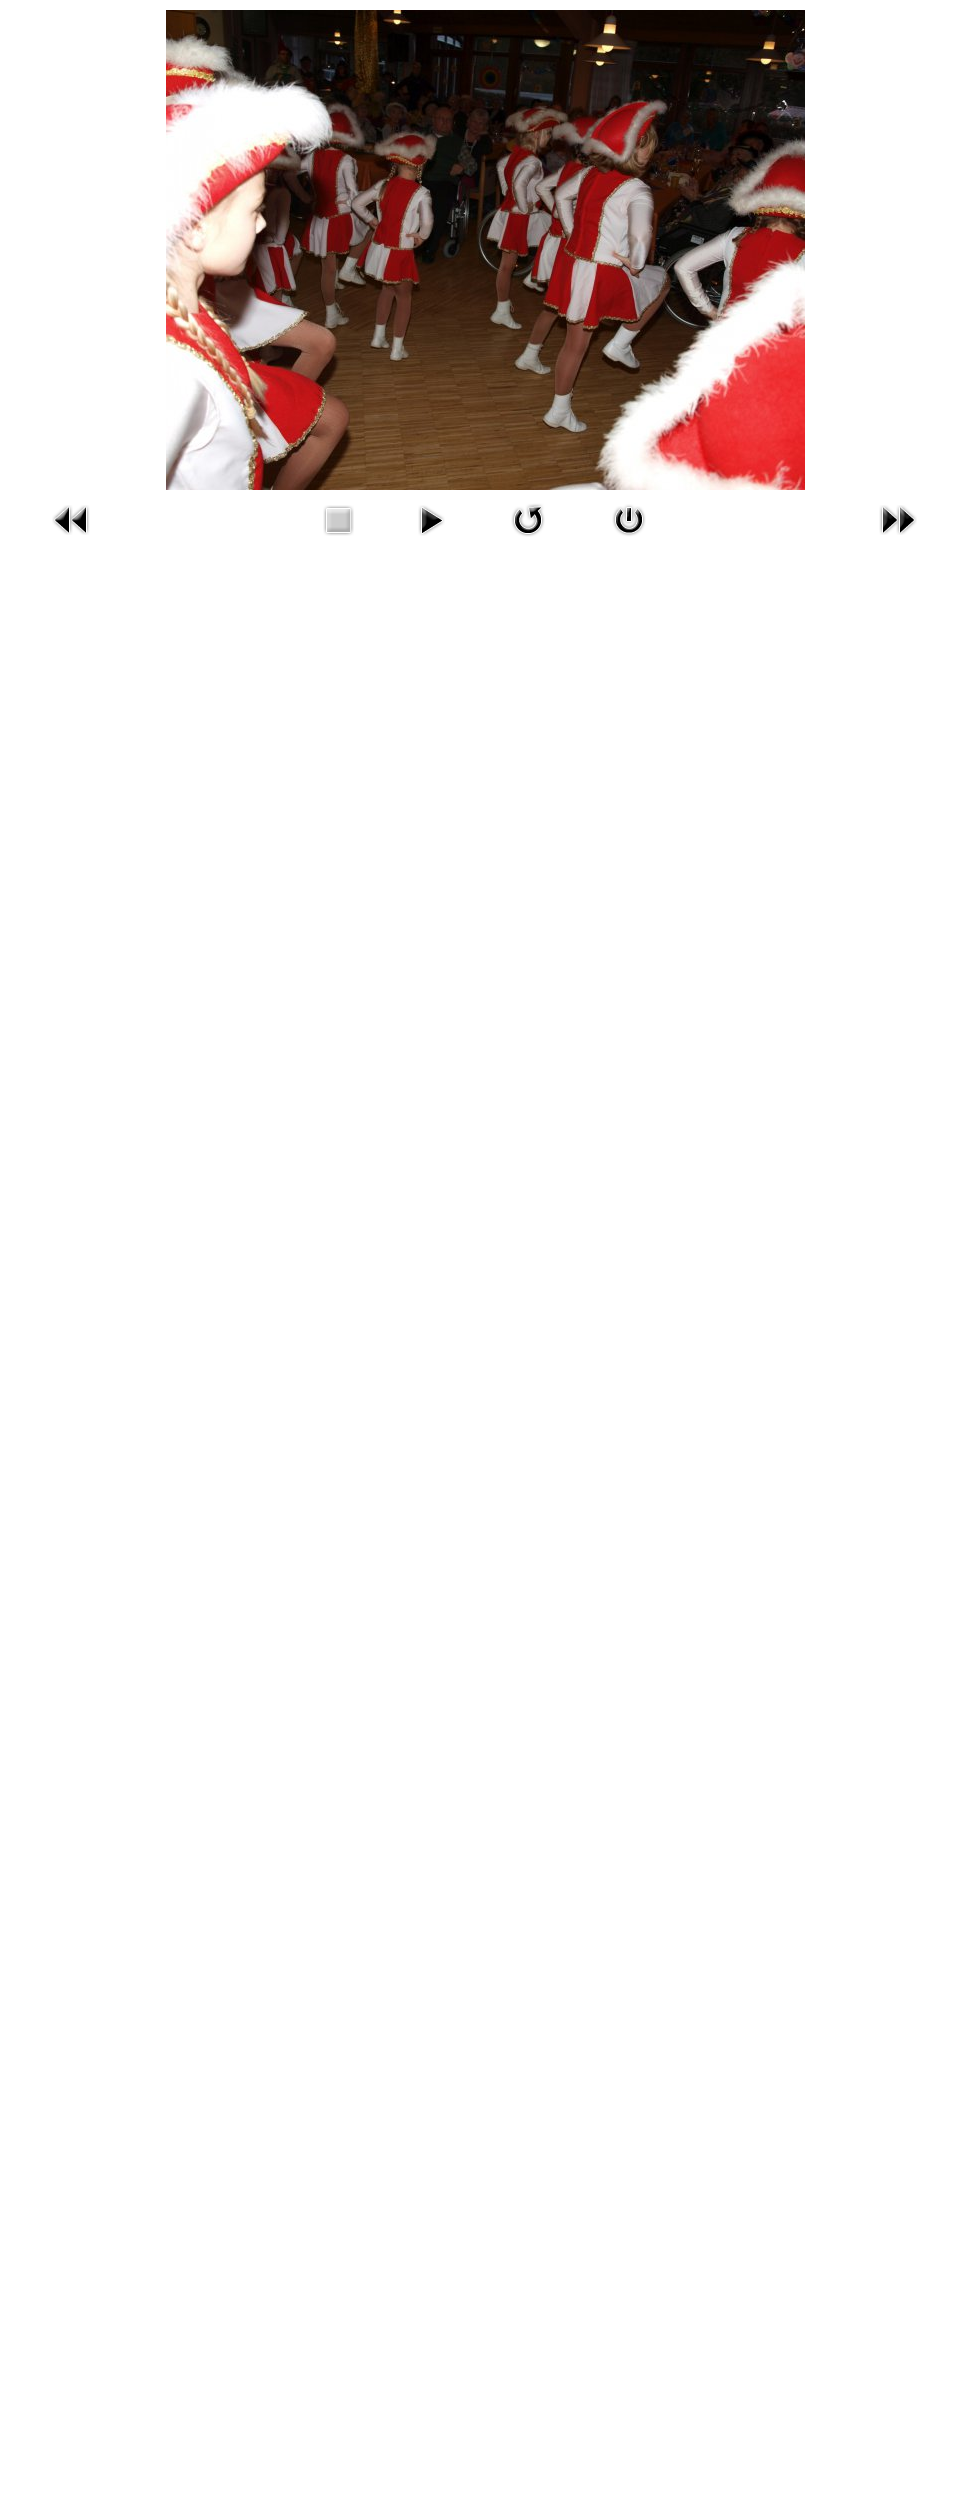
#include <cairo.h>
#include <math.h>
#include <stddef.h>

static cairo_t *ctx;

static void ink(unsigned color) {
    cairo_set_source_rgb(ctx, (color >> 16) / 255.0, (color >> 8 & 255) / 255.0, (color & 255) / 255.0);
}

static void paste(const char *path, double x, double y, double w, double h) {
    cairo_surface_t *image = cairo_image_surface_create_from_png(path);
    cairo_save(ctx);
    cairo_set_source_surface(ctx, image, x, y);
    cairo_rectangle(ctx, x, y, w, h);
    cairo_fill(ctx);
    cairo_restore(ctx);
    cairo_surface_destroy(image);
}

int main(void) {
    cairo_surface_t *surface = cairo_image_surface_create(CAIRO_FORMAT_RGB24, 970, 2520);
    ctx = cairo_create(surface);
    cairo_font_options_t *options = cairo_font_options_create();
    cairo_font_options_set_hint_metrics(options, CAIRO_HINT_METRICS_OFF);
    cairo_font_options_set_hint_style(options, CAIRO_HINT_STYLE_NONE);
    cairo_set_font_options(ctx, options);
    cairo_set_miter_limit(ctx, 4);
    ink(0xffffff);
    cairo_paint(ctx);
    paste("pic1.png", 166, 10, 639, 480);
    paste("pic2.png", 52, 505, 38, 30);
    paste("pic3.png", 323, 505, 31, 31);
    paste("pic4.png", 418, 505, 27, 31);
    paste("pic5.png", 511, 503, 34, 34);
    paste("pic6.png", 612, 504, 34, 33);
    paste("pic7.png", 879, 505, 38, 30);
    cairo_surface_write_to_png(surface, "screenshot.png");
    cairo_font_options_destroy(options);
    cairo_destroy(ctx);
    cairo_surface_destroy(surface);
    return 0;
}
